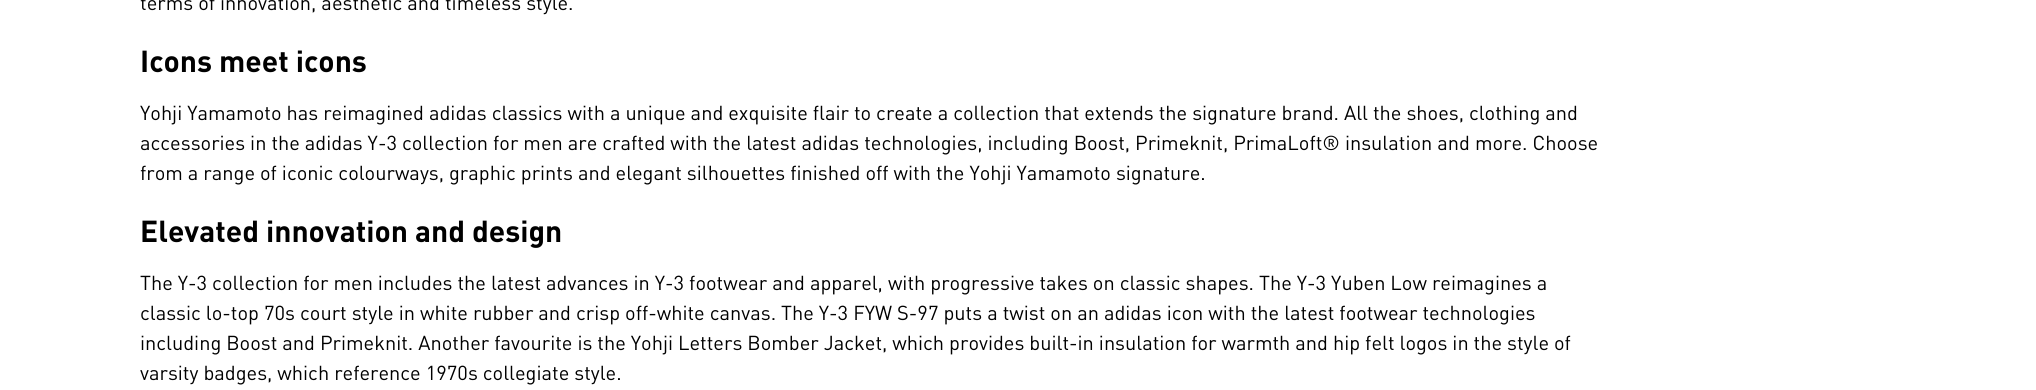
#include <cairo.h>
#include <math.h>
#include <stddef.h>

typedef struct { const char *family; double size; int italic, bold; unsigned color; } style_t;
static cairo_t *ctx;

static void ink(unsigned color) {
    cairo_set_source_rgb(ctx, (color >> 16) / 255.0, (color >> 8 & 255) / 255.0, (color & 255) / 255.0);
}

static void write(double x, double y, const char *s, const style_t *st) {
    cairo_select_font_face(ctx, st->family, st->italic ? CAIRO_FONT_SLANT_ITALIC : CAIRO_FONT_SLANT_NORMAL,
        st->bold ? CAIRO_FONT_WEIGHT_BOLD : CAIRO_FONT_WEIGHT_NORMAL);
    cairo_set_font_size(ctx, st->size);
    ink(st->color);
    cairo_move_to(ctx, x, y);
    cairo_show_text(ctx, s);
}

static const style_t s1 = {"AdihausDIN", 20, 0, 0, 0x000000};
static const style_t s2 = {"AdihausDIN", 30, 0, 1, 0x000000};

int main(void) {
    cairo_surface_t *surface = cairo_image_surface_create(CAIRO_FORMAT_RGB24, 2036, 390);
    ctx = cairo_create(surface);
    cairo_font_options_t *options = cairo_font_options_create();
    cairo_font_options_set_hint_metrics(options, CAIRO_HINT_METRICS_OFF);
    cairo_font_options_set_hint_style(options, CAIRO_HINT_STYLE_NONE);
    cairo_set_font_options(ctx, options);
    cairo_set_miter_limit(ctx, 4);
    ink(0xffffff);
    cairo_paint(ctx);
    write(140, 10, "terms of innovation, aesthetic and timeless style.", &s1);
    write(140, 72, "Icons meet icons", &s2);
    write(140, 120, "Yohji Yamamoto has reimagined adidas classics with a unique and exquisite flair to create a collection that extends the signature brand. All the shoes, clothing and", &s1);
    write(140, 150, "accessories in the adidas Y-3 collection for men are crafted with the latest adidas technologies, including Boost, Primeknit, PrimaLoft® insulation and more. Choose", &s1);
    write(140, 180, "from a range of iconic colourways, graphic prints and elegant silhouettes finished off with the Yohji Yamamoto signature.", &s1);
    write(140, 242, "Elevated innovation and design", &s2);
    write(140, 290, "The Y-3 collection for men includes the latest advances in Y-3 footwear and apparel, with progressive takes on classic shapes. The Y-3 Yuben Low reimagines a", &s1);
    write(140, 320, "classic lo-top 70s court style in white rubber and crisp off-white canvas. The Y-3 FYW S-97 puts a twist on an adidas icon with the latest footwear technologies", &s1);
    write(140, 350, "including Boost and Primeknit. Another favourite is the Yohji Letters Bomber Jacket, which provides built-in insulation for warmth and hip felt logos in the style of", &s1);
    write(140, 380, "varsity badges, which reference 1970s collegiate style.", &s1);
    cairo_surface_write_to_png(surface, "screenshot.png");
    cairo_font_options_destroy(options);
    cairo_destroy(ctx);
    cairo_surface_destroy(surface);
    return 0;
}
